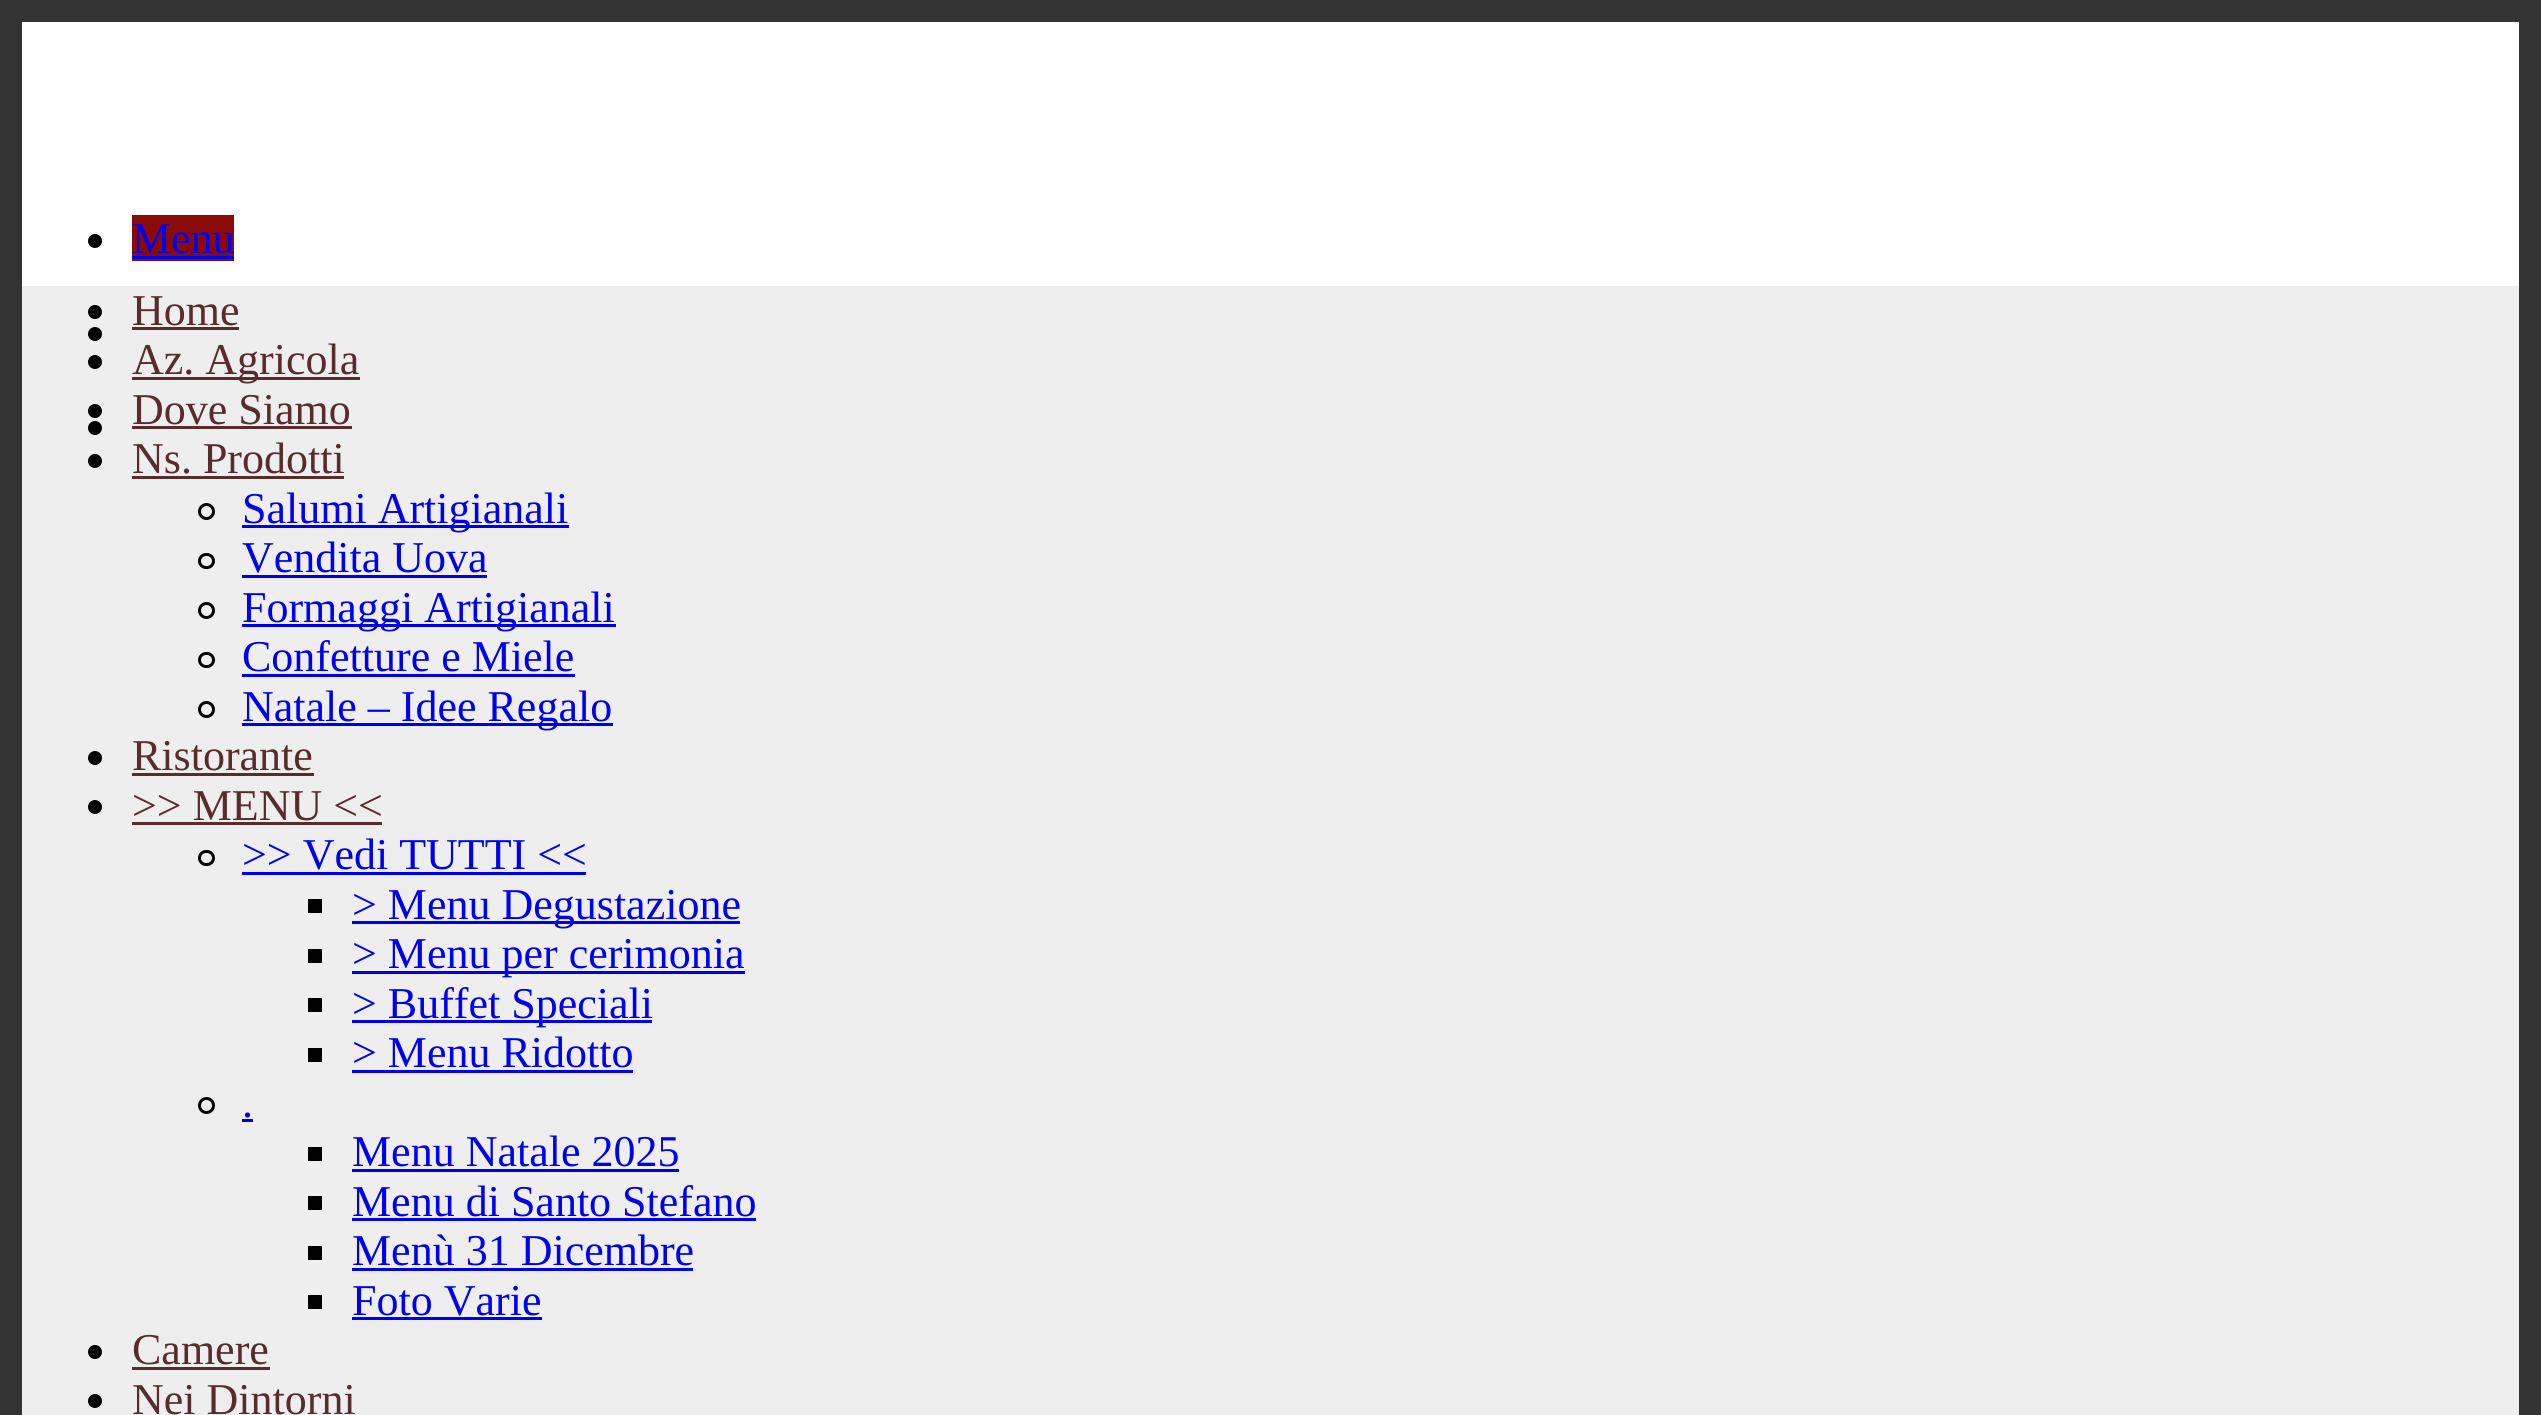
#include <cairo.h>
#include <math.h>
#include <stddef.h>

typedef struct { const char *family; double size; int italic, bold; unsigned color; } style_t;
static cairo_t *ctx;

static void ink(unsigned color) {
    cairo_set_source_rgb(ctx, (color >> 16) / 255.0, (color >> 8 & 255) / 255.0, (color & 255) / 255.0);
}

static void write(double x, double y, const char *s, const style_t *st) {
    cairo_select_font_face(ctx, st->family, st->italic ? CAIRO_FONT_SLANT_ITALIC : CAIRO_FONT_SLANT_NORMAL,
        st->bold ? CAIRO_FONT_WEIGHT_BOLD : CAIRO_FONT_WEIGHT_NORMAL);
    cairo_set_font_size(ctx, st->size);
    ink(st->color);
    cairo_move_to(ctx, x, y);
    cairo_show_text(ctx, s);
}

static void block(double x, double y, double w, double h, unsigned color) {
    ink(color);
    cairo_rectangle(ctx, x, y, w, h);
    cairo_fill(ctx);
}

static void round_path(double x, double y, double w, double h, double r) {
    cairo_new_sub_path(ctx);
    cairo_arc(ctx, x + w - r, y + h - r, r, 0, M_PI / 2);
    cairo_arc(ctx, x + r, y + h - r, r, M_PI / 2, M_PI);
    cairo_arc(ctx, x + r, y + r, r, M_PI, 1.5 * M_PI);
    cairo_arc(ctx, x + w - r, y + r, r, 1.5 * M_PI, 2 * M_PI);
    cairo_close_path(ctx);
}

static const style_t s1 = {"Liberation Serif", 44, 0, 0, 0x0000ee};
static const style_t s2 = {"Liberation Serif", 44, 0, 0, 0x582c2c};

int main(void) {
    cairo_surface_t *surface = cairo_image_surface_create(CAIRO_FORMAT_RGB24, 2541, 1415);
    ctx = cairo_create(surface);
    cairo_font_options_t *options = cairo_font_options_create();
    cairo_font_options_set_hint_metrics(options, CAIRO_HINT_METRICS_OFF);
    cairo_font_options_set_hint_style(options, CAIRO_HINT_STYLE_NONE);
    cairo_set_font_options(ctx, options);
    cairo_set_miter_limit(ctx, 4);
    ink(0x333333);
    cairo_paint(ctx);
    block(22, 22, 2497, 264, 0xffffff);
    ink(0x000000);
    cairo_arc(ctx, 95, 241, 7, 0, 2 * M_PI);
    cairo_fill(ctx);
    block(132, 215, 102, 46, 0x8a0909);
    write(132, 253, "Menu", &s1);
    block(132, 256, 102, 3, 0x0000ee);
    block(22, 286, 2497, 1129, 0xeeeeee);
    ink(0x000000);
    cairo_new_path(ctx);
    cairo_arc(ctx, 95, 334, 7, 0, 2 * M_PI);
    cairo_fill(ctx);
    cairo_arc(ctx, 95, 428, 7, 0, 2 * M_PI);
    cairo_fill(ctx);
    cairo_arc(ctx, 95, 312, 7, 0, 2 * M_PI);
    cairo_fill(ctx);
    write(132, 325, "Home", &s2);
    block(132, 327, 107, 3, 0x582c2c);
    ink(0x000000);
    cairo_new_path(ctx);
    cairo_arc(ctx, 95, 362, 7, 0, 2 * M_PI);
    cairo_fill(ctx);
    block(132, 377, 228, 3, 0x582c2c);
    write(132, 374, "Az. Agricola", &s2);
    ink(0x000000);
    cairo_new_path(ctx);
    cairo_arc(ctx, 95, 411, 7, 0, 2 * M_PI);
    cairo_fill(ctx);
    write(132, 424, "Dove Siamo", &s2);
    block(132, 426, 220, 3, 0x582c2c);
    ink(0x000000);
    cairo_new_path(ctx);
    cairo_arc(ctx, 95, 461, 7, 0, 2 * M_PI);
    cairo_fill(ctx);
    write(132, 473, "Ns. Prodotti", &s2);
    block(132, 476, 212, 3, 0x582c2c);
    cairo_new_path(ctx);
    cairo_arc(ctx, 206.5, 511.5, 7, 0, 2 * M_PI);
    ink(0x000000);
    cairo_set_line_width(ctx, 3);
    cairo_stroke(ctx);
    block(242, 525, 327, 3, 0x0000ee);
    write(242, 523, "Salumi Artigianali", &s1);
    round_path(199.5, 554.5, 14, 13, 6.5);
    ink(0x000000);
    cairo_stroke(ctx);
    write(242, 572, "Vendita Uova", &s1);
    block(242, 575, 245, 3, 0x0000ee);
    cairo_new_path(ctx);
    cairo_arc(ctx, 206.5, 610.5, 7, 0, 2 * M_PI);
    ink(0x000000);
    cairo_stroke(ctx);
    block(242, 624, 374, 3, 0x0000ee);
    write(242, 622, "Formaggi Artigianali", &s1);
    round_path(199.5, 653.5, 14, 13, 6.5);
    ink(0x000000);
    cairo_stroke(ctx);
    write(242, 671, "Confetture e Miele", &s1);
    block(242, 674, 333, 3, 0x0000ee);
    cairo_new_path(ctx);
    cairo_arc(ctx, 206.5, 709.5, 7, 0, 2 * M_PI);
    ink(0x000000);
    cairo_stroke(ctx);
    block(242, 723, 371, 3, 0x0000ee);
    write(242, 721, "Natale – Idee Regalo", &s1);
    ink(0x000000);
    cairo_new_path(ctx);
    cairo_arc(ctx, 95, 758, 7, 0, 2 * M_PI);
    cairo_fill(ctx);
    write(132, 770, "Ristorante", &s2);
    block(132, 773, 182, 3, 0x582c2c);
    ink(0x000000);
    cairo_new_path(ctx);
    cairo_arc(ctx, 95, 807, 7, 0, 2 * M_PI);
    cairo_fill(ctx);
    write(132, 820, ">> MENU <<", &s2);
    block(132, 822, 250, 3, 0x582c2c);
    round_path(199.5, 851.5, 14, 13, 6.5);
    ink(0x000000);
    cairo_stroke(ctx);
    write(242, 869, ">> Vedi TUTTI <<", &s1);
    block(242, 872, 344, 3, 0x0000ee);
    block(308, 899, 14, 14, 0x000000);
    block(352, 921, 388, 3, 0x0000ee);
    write(352, 919, "> Menu Degustazione", &s1);
    block(308, 949, 14, 14, 0x000000);
    block(352, 971, 393, 3, 0x0000ee);
    write(352, 968, "> Menu per cerimonia", &s1);
    block(308, 998, 14, 14, 0x000000);
    block(352, 1020, 300, 3, 0x0000ee);
    write(352, 1018, "> Buffet Speciali", &s1);
    block(308, 1048, 14, 14, 0x000000);
    write(352, 1067, "> Menu Ridotto", &s1);
    block(352, 1070, 281, 3, 0x0000ee);
    cairo_new_path(ctx);
    cairo_arc(ctx, 206.5, 1105.5, 7, 0, 2 * M_PI);
    ink(0x000000);
    cairo_stroke(ctx);
    write(242, 1117, ".", &s1);
    block(242, 1119, 11, 3, 0x0000ee);
    block(308, 1147, 14, 14, 0x000000);
    write(352, 1166, "Menu Natale 2025", &s1);
    block(352, 1169, 327, 3, 0x0000ee);
    block(308, 1196, 14, 14, 0x000000);
    write(352, 1216, "Menu di Santo Stefano", &s1);
    block(352, 1218, 404, 3, 0x0000ee);
    block(308, 1246, 14, 14, 0x000000);
    write(352, 1265, "Menù 31 Dicembre", &s1);
    block(352, 1268, 341, 3, 0x0000ee);
    block(308, 1295, 14, 14, 0x000000);
    write(352, 1315, "Foto Varie", &s1);
    block(352, 1317, 190, 3, 0x0000ee);
    ink(0x000000);
    cairo_new_path(ctx);
    cairo_arc(ctx, 95, 1352, 7, 0, 2 * M_PI);
    cairo_fill(ctx);
    write(132, 1364, "Camere", &s2);
    block(132, 1367, 138, 3, 0x582c2c);
    ink(0x000000);
    cairo_new_path(ctx);
    cairo_arc(ctx, 95, 1401, 7, 0, 2 * M_PI);
    cairo_fill(ctx);
    write(132, 1414, "Nei Dintorni", &s2);
    cairo_surface_write_to_png(surface, "screenshot.png");
    cairo_font_options_destroy(options);
    cairo_destroy(ctx);
    cairo_surface_destroy(surface);
    return 0;
}
